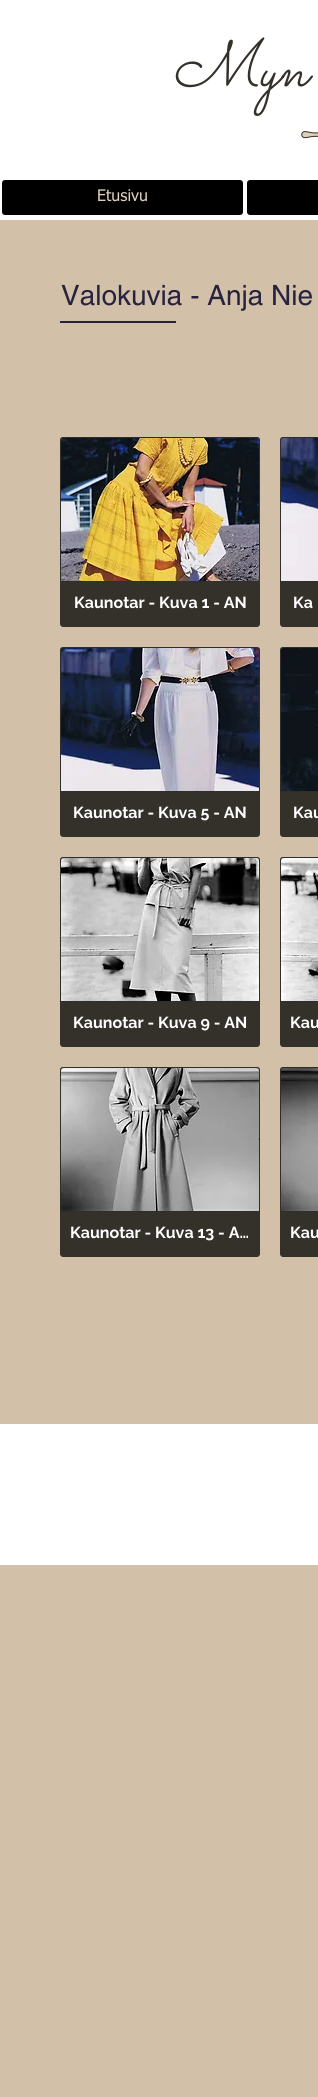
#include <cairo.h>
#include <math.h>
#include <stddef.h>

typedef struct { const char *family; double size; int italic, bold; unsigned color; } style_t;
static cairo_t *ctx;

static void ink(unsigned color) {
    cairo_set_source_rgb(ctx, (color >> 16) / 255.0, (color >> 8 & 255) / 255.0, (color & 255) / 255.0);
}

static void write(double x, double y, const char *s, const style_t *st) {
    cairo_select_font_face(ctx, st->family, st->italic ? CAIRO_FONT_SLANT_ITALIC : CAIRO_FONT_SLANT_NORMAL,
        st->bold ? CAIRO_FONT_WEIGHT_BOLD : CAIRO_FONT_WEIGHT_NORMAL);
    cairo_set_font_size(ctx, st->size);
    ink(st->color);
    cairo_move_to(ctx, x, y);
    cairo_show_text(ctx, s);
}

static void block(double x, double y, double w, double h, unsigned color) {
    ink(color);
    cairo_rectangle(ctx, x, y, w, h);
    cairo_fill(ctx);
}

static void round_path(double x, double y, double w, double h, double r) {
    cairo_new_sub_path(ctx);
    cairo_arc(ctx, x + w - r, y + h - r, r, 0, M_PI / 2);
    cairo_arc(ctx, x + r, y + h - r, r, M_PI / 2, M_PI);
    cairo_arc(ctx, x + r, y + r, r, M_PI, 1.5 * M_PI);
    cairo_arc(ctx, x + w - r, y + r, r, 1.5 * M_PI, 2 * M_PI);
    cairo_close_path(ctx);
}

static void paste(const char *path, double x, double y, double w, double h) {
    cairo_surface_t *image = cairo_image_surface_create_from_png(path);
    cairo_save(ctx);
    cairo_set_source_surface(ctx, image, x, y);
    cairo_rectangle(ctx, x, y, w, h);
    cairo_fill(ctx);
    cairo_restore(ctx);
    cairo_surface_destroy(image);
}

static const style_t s1 = {"Sacramento", 65, 1, 0, 0x34302a};
static const style_t s2 = {"tahoma", 16, 0, 0, 0xdfcfba};
static const style_t s3 = {"helvetica", 28, 0, 0, 0x27223e};
static const style_t s4 = {"Raleway", 16, 0, 1, 0xffffff};

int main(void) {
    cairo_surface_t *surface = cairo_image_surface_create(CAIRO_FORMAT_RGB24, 318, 2097);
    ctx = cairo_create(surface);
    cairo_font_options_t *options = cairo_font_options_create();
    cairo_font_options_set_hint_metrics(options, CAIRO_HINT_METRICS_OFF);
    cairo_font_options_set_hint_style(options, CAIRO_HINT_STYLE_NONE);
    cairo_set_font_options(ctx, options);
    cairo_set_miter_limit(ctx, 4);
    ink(0xd2c0a8);
    cairo_paint(ctx);
    block(0, 0, 318, 220, 0xffffff);
    write(172, 86, "Myn", &s1);
    paste("pic1.png", 301, 131, 17, 8);
    ink(0x000000);
    round_path(2, 180, 241, 35, 3);
    cairo_fill(ctx);
    write(97, 201, "Etusivu", &s2);
    ink(0x000000);
    round_path(247, 180, 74, 35, 3);
    cairo_fill(ctx);
    write(61, 305, "Valokuvia - Anja Nie", &s3);
    block(60, 321, 116, 2, 0x27223e);
    ink(0x2f2e2e);
    cairo_new_path(ctx);
    cairo_move_to(ctx, 63, 437.5);
    cairo_line_to(ctx, 257, 437.5);
    cairo_curve_to(ctx, 258.5, 437.5, 259.5, 438.5, 259.5, 440);
    cairo_line_to(ctx, 259.5, 581.5);
    cairo_line_to(ctx, 60.5, 581.5);
    cairo_line_to(ctx, 60.5, 440);
    cairo_curve_to(ctx, 60.5, 438.5, 61.5, 437.5, 63, 437.5);
    cairo_close_path(ctx);
    cairo_fill_preserve(ctx);
    cairo_set_line_width(ctx, 1);
    cairo_stroke(ctx);
    paste("pic2.png", 61, 438, 198, 143);
    ink(0x34302a);
    cairo_new_path(ctx);
    cairo_move_to(ctx, 60, 582);
    cairo_line_to(ctx, 260, 582);
    cairo_line_to(ctx, 260, 624);
    cairo_curve_to(ctx, 260, 625.5, 258.5, 627, 257, 627);
    cairo_line_to(ctx, 63, 627);
    cairo_curve_to(ctx, 61.5, 627, 60, 625.5, 60, 624);
    cairo_close_path(ctx);
    cairo_fill(ctx);
    write(74, 608, "Kaunotar - Kuva 1 - AN", &s4);
    ink(0x2f2e2e);
    cairo_new_path(ctx);
    cairo_move_to(ctx, 283, 437.5);
    cairo_line_to(ctx, 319, 437.5);
    cairo_curve_to(ctx, 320.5, 437.5, 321.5, 438.5, 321.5, 440);
    cairo_line_to(ctx, 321.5, 581.5);
    cairo_line_to(ctx, 280.5, 581.5);
    cairo_line_to(ctx, 280.5, 440);
    cairo_curve_to(ctx, 280.5, 438.5, 281.5, 437.5, 283, 437.5);
    cairo_close_path(ctx);
    cairo_fill_preserve(ctx);
    cairo_stroke(ctx);
    paste("pic3.png", 281, 438, 37, 143);
    ink(0x34302a);
    cairo_new_path(ctx);
    cairo_move_to(ctx, 280, 582);
    cairo_line_to(ctx, 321, 582);
    cairo_line_to(ctx, 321, 624);
    cairo_curve_to(ctx, 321, 625.5, 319.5, 627, 318, 627);
    cairo_line_to(ctx, 283, 627);
    cairo_curve_to(ctx, 281.5, 627, 280, 625.5, 280, 624);
    cairo_close_path(ctx);
    cairo_fill(ctx);
    write(293, 608, "Ka", &s4);
    ink(0x2f2e2e);
    cairo_new_path(ctx);
    cairo_move_to(ctx, 63, 647.5);
    cairo_line_to(ctx, 257, 647.5);
    cairo_curve_to(ctx, 258.5, 647.5, 259.5, 648.5, 259.5, 650);
    cairo_line_to(ctx, 259.5, 791.5);
    cairo_line_to(ctx, 60.5, 791.5);
    cairo_line_to(ctx, 60.5, 650);
    cairo_curve_to(ctx, 60.5, 648.5, 61.5, 647.5, 63, 647.5);
    cairo_close_path(ctx);
    cairo_fill_preserve(ctx);
    cairo_stroke(ctx);
    paste("pic4.png", 61, 648, 198, 143);
    ink(0x34302a);
    cairo_new_path(ctx);
    cairo_move_to(ctx, 60, 792);
    cairo_line_to(ctx, 260, 792);
    cairo_line_to(ctx, 260, 834);
    cairo_curve_to(ctx, 260, 835.5, 258.5, 837, 257, 837);
    cairo_line_to(ctx, 63, 837);
    cairo_curve_to(ctx, 61.5, 837, 60, 835.5, 60, 834);
    cairo_close_path(ctx);
    cairo_fill(ctx);
    write(73, 818, "Kaunotar - Kuva 5 - AN", &s4);
    ink(0x2f2e2e);
    cairo_new_path(ctx);
    cairo_move_to(ctx, 283, 647.5);
    cairo_line_to(ctx, 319, 647.5);
    cairo_curve_to(ctx, 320.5, 647.5, 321.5, 648.5, 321.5, 650);
    cairo_line_to(ctx, 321.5, 791.5);
    cairo_line_to(ctx, 280.5, 791.5);
    cairo_line_to(ctx, 280.5, 650);
    cairo_curve_to(ctx, 280.5, 648.5, 281.5, 647.5, 283, 647.5);
    cairo_close_path(ctx);
    cairo_fill_preserve(ctx);
    cairo_stroke(ctx);
    paste("pic5.png", 281, 648, 37, 143);
    ink(0x34302a);
    cairo_new_path(ctx);
    cairo_move_to(ctx, 280, 792);
    cairo_line_to(ctx, 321, 792);
    cairo_line_to(ctx, 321, 834);
    cairo_curve_to(ctx, 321, 835.5, 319.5, 837, 318, 837);
    cairo_line_to(ctx, 283, 837);
    cairo_curve_to(ctx, 281.5, 837, 280, 835.5, 280, 834);
    cairo_close_path(ctx);
    cairo_fill(ctx);
    write(293, 818, "Kau", &s4);
    ink(0x2f2e2e);
    cairo_new_path(ctx);
    cairo_move_to(ctx, 63, 857.5);
    cairo_line_to(ctx, 257, 857.5);
    cairo_curve_to(ctx, 258.5, 857.5, 259.5, 858.5, 259.5, 860);
    cairo_line_to(ctx, 259.5, 1001.5);
    cairo_line_to(ctx, 60.5, 1001.5);
    cairo_line_to(ctx, 60.5, 860);
    cairo_curve_to(ctx, 60.5, 858.5, 61.5, 857.5, 63, 857.5);
    cairo_close_path(ctx);
    cairo_fill_preserve(ctx);
    cairo_stroke(ctx);
    paste("pic6.png", 61, 858, 198, 143);
    ink(0x34302a);
    cairo_new_path(ctx);
    cairo_move_to(ctx, 60, 1002);
    cairo_line_to(ctx, 260, 1002);
    cairo_line_to(ctx, 260, 1044);
    cairo_curve_to(ctx, 260, 1045.5, 258.5, 1047, 257, 1047);
    cairo_line_to(ctx, 63, 1047);
    cairo_curve_to(ctx, 61.5, 1047, 60, 1045.5, 60, 1044);
    cairo_close_path(ctx);
    cairo_fill(ctx);
    write(73, 1028, "Kaunotar - Kuva 9 - AN", &s4);
    ink(0x2f2e2e);
    cairo_new_path(ctx);
    cairo_move_to(ctx, 283, 857.5);
    cairo_line_to(ctx, 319, 857.5);
    cairo_curve_to(ctx, 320.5, 857.5, 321.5, 858.5, 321.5, 860);
    cairo_line_to(ctx, 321.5, 1001.5);
    cairo_line_to(ctx, 280.5, 1001.5);
    cairo_line_to(ctx, 280.5, 860);
    cairo_curve_to(ctx, 280.5, 858.5, 281.5, 857.5, 283, 857.5);
    cairo_close_path(ctx);
    cairo_fill_preserve(ctx);
    cairo_stroke(ctx);
    paste("pic7.png", 281, 858, 37, 143);
    ink(0x34302a);
    cairo_new_path(ctx);
    cairo_move_to(ctx, 280, 1002);
    cairo_line_to(ctx, 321, 1002);
    cairo_line_to(ctx, 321, 1044);
    cairo_curve_to(ctx, 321, 1045.5, 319.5, 1047, 318, 1047);
    cairo_line_to(ctx, 283, 1047);
    cairo_curve_to(ctx, 281.5, 1047, 280, 1045.5, 280, 1044);
    cairo_close_path(ctx);
    cairo_fill(ctx);
    write(290, 1028, "Kau", &s4);
    ink(0x2f2e2e);
    cairo_new_path(ctx);
    cairo_move_to(ctx, 63, 1067.5);
    cairo_line_to(ctx, 257, 1067.5);
    cairo_curve_to(ctx, 258.5, 1067.5, 259.5, 1068.5, 259.5, 1070);
    cairo_line_to(ctx, 259.5, 1211.5);
    cairo_line_to(ctx, 60.5, 1211.5);
    cairo_line_to(ctx, 60.5, 1070);
    cairo_curve_to(ctx, 60.5, 1068.5, 61.5, 1067.5, 63, 1067.5);
    cairo_close_path(ctx);
    cairo_fill_preserve(ctx);
    cairo_stroke(ctx);
    paste("pic8.png", 61, 1068, 198, 143);
    ink(0x34302a);
    cairo_new_path(ctx);
    cairo_move_to(ctx, 60, 1212);
    cairo_line_to(ctx, 260, 1212);
    cairo_line_to(ctx, 260, 1254);
    cairo_curve_to(ctx, 260, 1255.5, 258.5, 1257, 257, 1257);
    cairo_line_to(ctx, 63, 1257);
    cairo_curve_to(ctx, 61.5, 1257, 60, 1255.5, 60, 1254);
    cairo_close_path(ctx);
    cairo_fill(ctx);
    write(70, 1238, "Kaunotar - Kuva 13 - A…", &s4);
    ink(0x2f2e2e);
    cairo_new_path(ctx);
    cairo_move_to(ctx, 283, 1067.5);
    cairo_line_to(ctx, 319, 1067.5);
    cairo_curve_to(ctx, 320.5, 1067.5, 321.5, 1068.5, 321.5, 1070);
    cairo_line_to(ctx, 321.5, 1211.5);
    cairo_line_to(ctx, 280.5, 1211.5);
    cairo_line_to(ctx, 280.5, 1070);
    cairo_curve_to(ctx, 280.5, 1068.5, 281.5, 1067.5, 283, 1067.5);
    cairo_close_path(ctx);
    cairo_fill_preserve(ctx);
    cairo_stroke(ctx);
    paste("pic9.png", 281, 1068, 37, 143);
    ink(0x34302a);
    cairo_new_path(ctx);
    cairo_move_to(ctx, 280, 1212);
    cairo_line_to(ctx, 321, 1212);
    cairo_line_to(ctx, 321, 1254);
    cairo_curve_to(ctx, 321, 1255.5, 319.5, 1257, 318, 1257);
    cairo_line_to(ctx, 283, 1257);
    cairo_curve_to(ctx, 281.5, 1257, 280, 1255.5, 280, 1254);
    cairo_close_path(ctx);
    cairo_fill(ctx);
    write(290, 1238, "Kau", &s4);
    block(0, 1424, 318, 141, 0xffffff);
    cairo_surface_write_to_png(surface, "screenshot.png");
    cairo_font_options_destroy(options);
    cairo_destroy(ctx);
    cairo_surface_destroy(surface);
    return 0;
}
